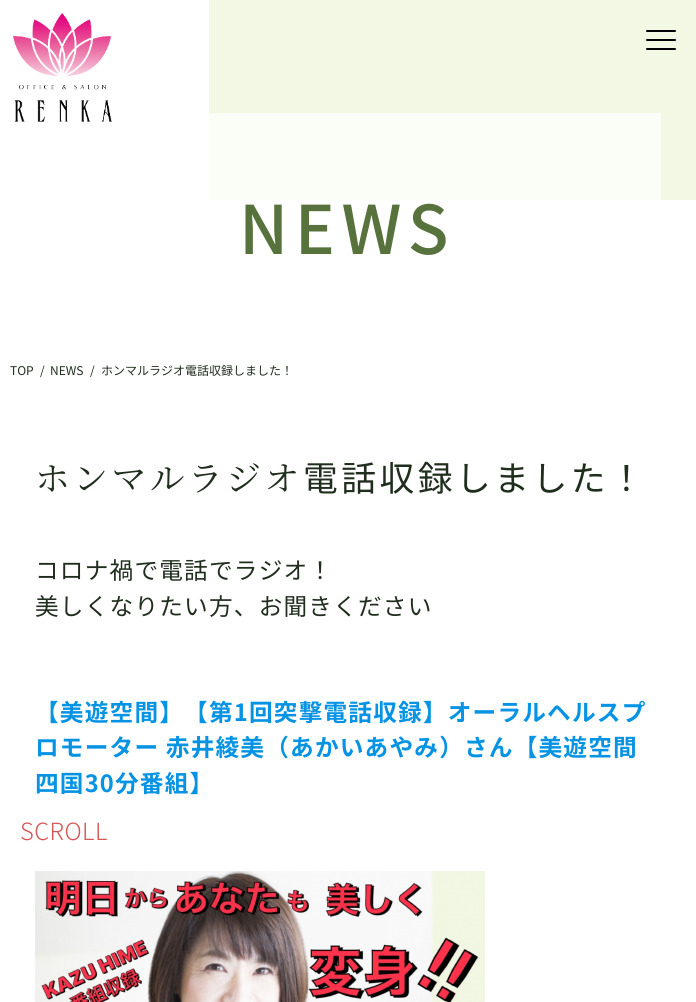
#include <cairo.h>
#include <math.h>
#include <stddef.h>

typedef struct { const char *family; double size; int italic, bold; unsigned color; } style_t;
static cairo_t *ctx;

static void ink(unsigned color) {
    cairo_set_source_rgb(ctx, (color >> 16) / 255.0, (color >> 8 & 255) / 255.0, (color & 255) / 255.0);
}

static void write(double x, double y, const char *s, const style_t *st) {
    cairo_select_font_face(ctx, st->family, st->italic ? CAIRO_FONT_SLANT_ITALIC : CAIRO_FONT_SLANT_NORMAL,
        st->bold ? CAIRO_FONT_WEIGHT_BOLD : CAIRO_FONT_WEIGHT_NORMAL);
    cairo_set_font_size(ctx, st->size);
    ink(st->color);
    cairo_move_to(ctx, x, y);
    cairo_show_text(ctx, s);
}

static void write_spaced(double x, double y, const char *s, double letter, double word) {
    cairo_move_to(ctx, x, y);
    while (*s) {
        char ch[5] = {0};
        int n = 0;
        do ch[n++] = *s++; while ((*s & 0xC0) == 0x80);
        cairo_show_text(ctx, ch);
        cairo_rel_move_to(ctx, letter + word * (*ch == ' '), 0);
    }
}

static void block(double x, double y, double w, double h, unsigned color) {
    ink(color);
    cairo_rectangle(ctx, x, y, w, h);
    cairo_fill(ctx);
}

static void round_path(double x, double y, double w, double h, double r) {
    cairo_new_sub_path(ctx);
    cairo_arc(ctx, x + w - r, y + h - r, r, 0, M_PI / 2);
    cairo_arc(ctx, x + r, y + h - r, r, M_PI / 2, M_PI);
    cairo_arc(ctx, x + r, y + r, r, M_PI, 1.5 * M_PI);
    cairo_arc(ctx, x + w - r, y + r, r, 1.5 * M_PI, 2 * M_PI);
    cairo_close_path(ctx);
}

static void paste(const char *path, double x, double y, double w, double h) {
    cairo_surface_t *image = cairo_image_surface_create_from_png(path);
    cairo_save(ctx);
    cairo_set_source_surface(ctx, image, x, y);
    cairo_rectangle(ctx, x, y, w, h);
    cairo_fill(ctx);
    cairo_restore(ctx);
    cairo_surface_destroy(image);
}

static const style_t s1 = {"Noto Sans JP", 12, 0, 0, 0x202e1e};

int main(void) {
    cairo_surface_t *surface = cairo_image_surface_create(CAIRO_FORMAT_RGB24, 696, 1002);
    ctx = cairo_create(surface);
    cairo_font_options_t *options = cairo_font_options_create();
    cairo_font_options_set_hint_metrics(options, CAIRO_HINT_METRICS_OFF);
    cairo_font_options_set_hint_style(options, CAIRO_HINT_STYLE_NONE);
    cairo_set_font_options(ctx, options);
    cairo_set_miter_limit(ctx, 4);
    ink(0xffffff);
    cairo_paint(ctx);
    paste("pic1.png", 13, 13, 99, 109);
    block(209, 0, 487, 200, 0xf3f8e4);
    ink(0x000000);
    round_path(646, 30, 30, 2, 1);
    cairo_fill(ctx);
    round_path(646, 39, 30, 2, 1);
    cairo_fill(ctx);
    round_path(646, 48, 30, 2, 1);
    cairo_fill(ctx);
    block(209, 113, 452, 87, 0xfbfdf7);
    cairo_select_font_face(ctx, "Noto Sans JP Medium", CAIRO_FONT_SLANT_NORMAL, CAIRO_FONT_WEIGHT_NORMAL);
    cairo_set_font_size(ctx, 67);
    ink(0x57723c);
    write_spaced(239, 254, "NEWS", 6.5, 0);
    write(10, 375, "TOP", &s1);
    write(40, 375, "/", &s1);
    write(50, 375, "NEWS", &s1);
    write(90, 375, "/", &s1);
    write(101, 375, "ホンマルラジオ電話収録しました！", &s1);
    cairo_select_font_face(ctx, "Noto Serif JP", CAIRO_FONT_SLANT_NORMAL, CAIRO_FONT_WEIGHT_NORMAL);
    cairo_set_font_size(ctx, 34.75);
    write_spaced(35, 491, "ホンマルラジオ", 3.5, 0);
    cairo_select_font_face(ctx, "Noto Sans JP", CAIRO_FONT_SLANT_NORMAL, CAIRO_FONT_WEIGHT_NORMAL);
    write_spaced(303, 491, "電話収録しました！", 3.5, 0);
    cairo_set_font_size(ctx, 23.65);
    write_spaced(35, 579, "コロナ禍で電話でラジオ！", 1.2, 0);
    write_spaced(35, 615, "美しくなりたい方、お聞きください", 1.2, 0);
    cairo_select_font_face(ctx, "Noto Sans JP", CAIRO_FONT_SLANT_NORMAL, CAIRO_FONT_WEIGHT_BOLD);
    ink(0x0693e3);
    write_spaced(35, 721, "【美遊空間】【第1回突撃電話収録】オーラルヘルスプ", 1.2, 0);
    write_spaced(35, 756, "ロモーター 赤井綾美（あかいあやみ）さん【美遊空間", 1.2, 0);
    write_spaced(35, 792, "四国30分番組】", 1.2, 0);
    paste("pic2.png", 35, 871, 450, 131);
    cairo_select_font_face(ctx, "Noto Sans JP Light", CAIRO_FONT_SLANT_NORMAL, CAIRO_FONT_WEIGHT_NORMAL);
    ink(0xd55454);
    write_spaced(20, 840, "SCROLL", 0.5, 0);
    cairo_surface_write_to_png(surface, "screenshot.png");
    cairo_font_options_destroy(options);
    cairo_destroy(ctx);
    cairo_surface_destroy(surface);
    return 0;
}
